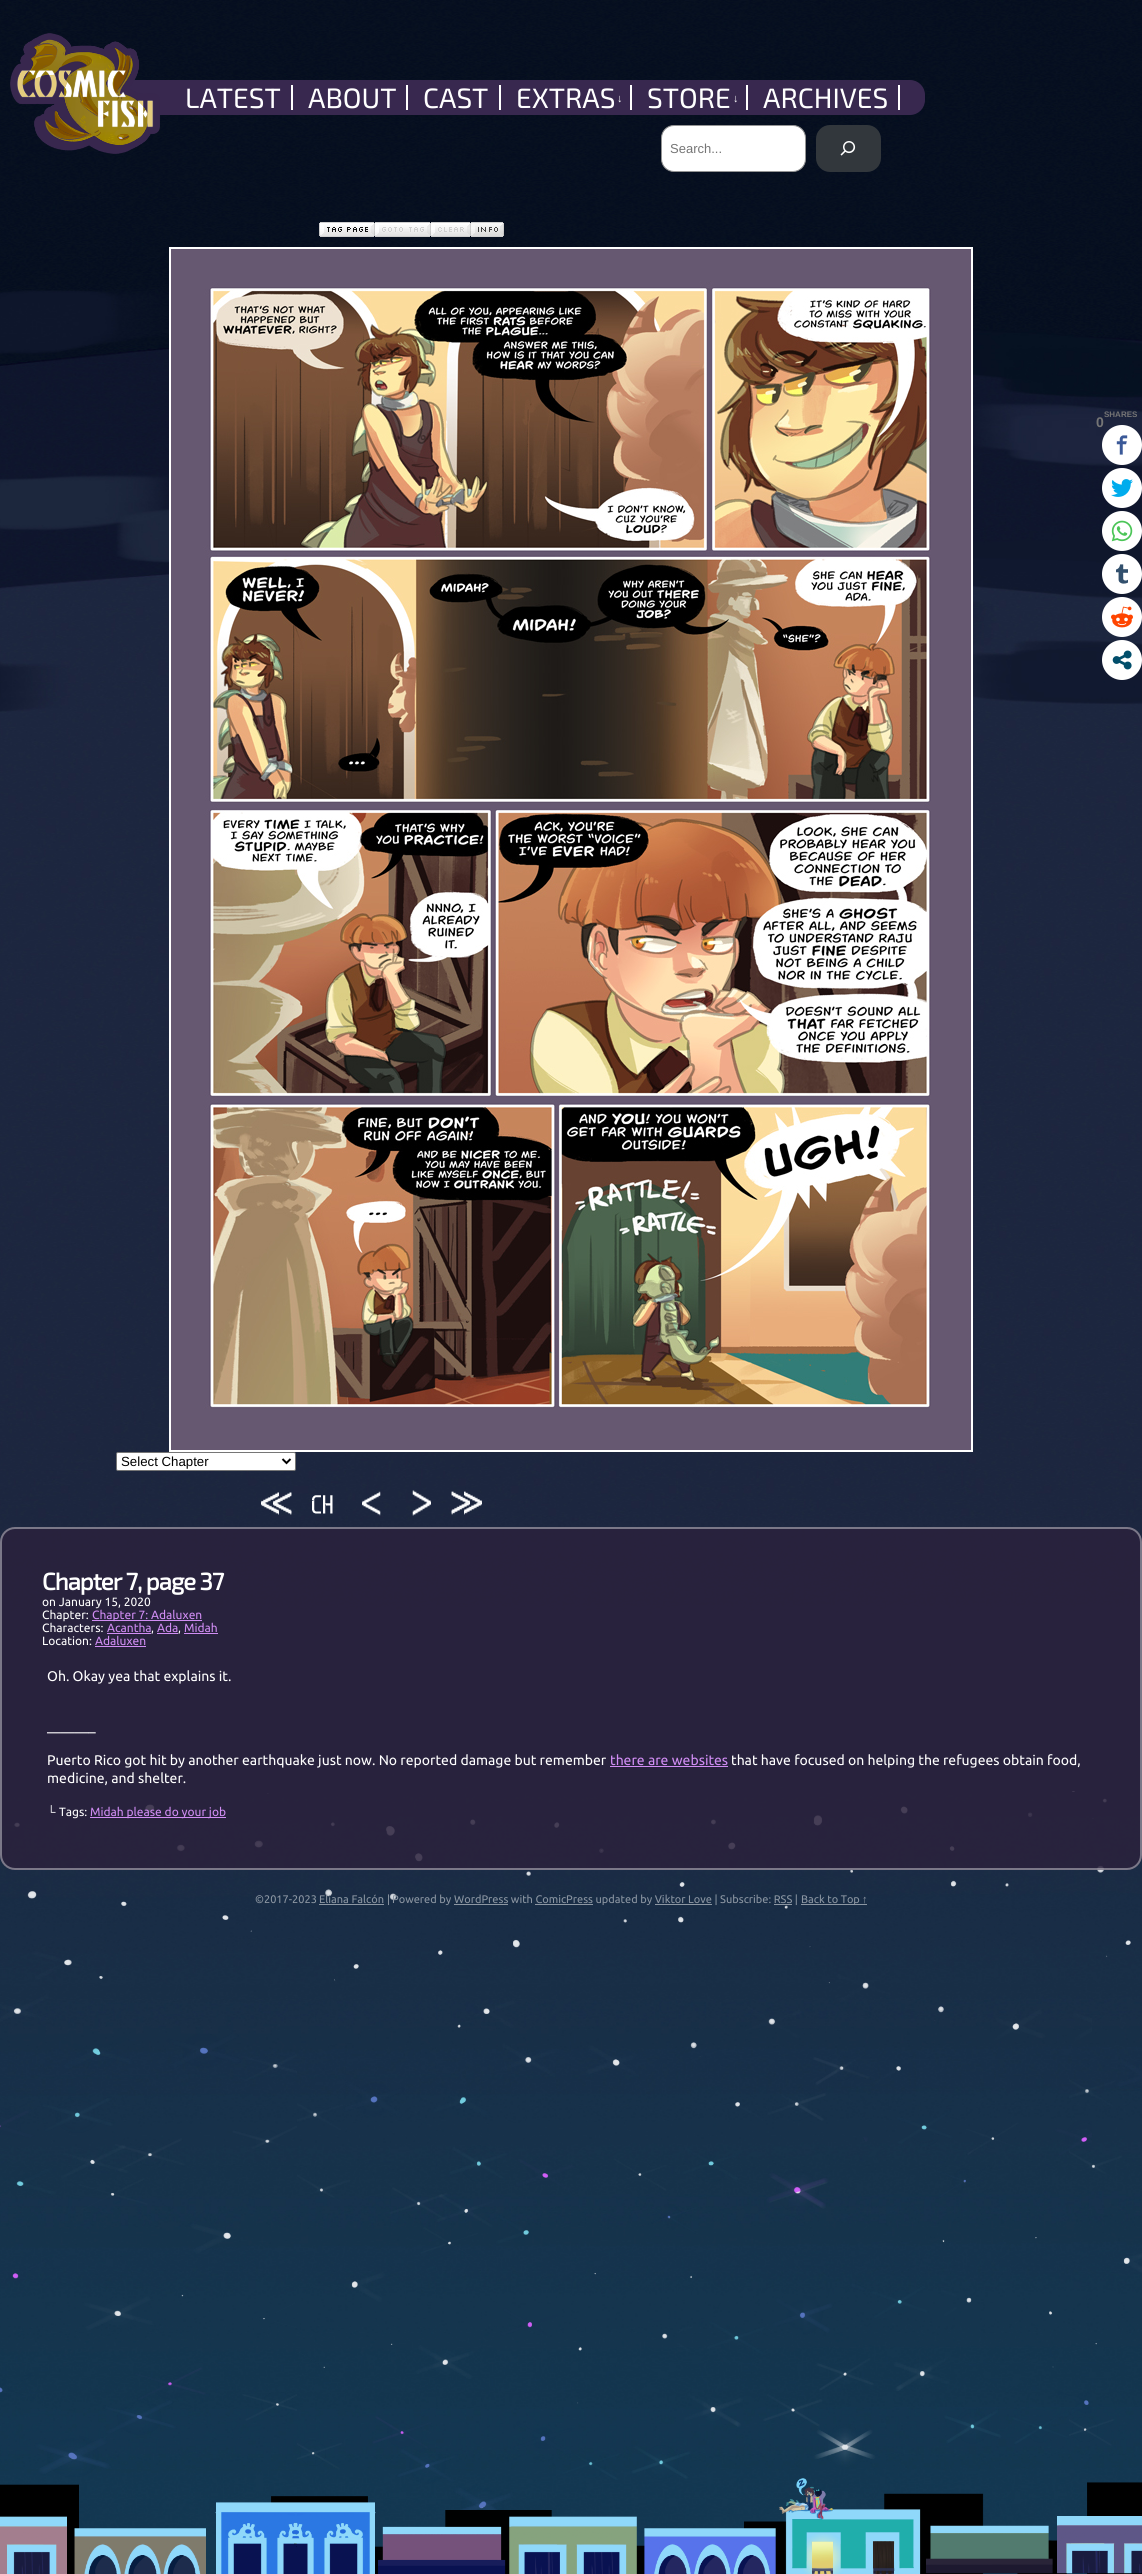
#include <cairo.h>
#include <math.h>
#include <stddef.h>

typedef struct { const char *family; double size; int italic, bold; unsigned color; } style_t;
static cairo_t *ctx;

static void ink(unsigned color) {
    cairo_set_source_rgb(ctx, (color >> 16) / 255.0, (color >> 8 & 255) / 255.0, (color & 255) / 255.0);
}

static void write(double x, double y, const char *s, const style_t *st) {
    cairo_select_font_face(ctx, st->family, st->italic ? CAIRO_FONT_SLANT_ITALIC : CAIRO_FONT_SLANT_NORMAL,
        st->bold ? CAIRO_FONT_WEIGHT_BOLD : CAIRO_FONT_WEIGHT_NORMAL);
    cairo_set_font_size(ctx, st->size);
    ink(st->color);
    cairo_move_to(ctx, x, y);
    cairo_show_text(ctx, s);
}

static void write_spaced(double x, double y, const char *s, double letter, double word) {
    cairo_move_to(ctx, x, y);
    while (*s) {
        char ch[5] = {0};
        int n = 0;
        do ch[n++] = *s++; while ((*s & 0xC0) == 0x80);
        cairo_show_text(ctx, ch);
        cairo_rel_move_to(ctx, letter + word * (*ch == ' '), 0);
    }
}

static void block(double x, double y, double w, double h, unsigned color) {
    ink(color);
    cairo_rectangle(ctx, x, y, w, h);
    cairo_fill(ctx);
}

static void round_path(double x, double y, double w, double h, double r) {
    cairo_new_sub_path(ctx);
    cairo_arc(ctx, x + w - r, y + h - r, r, 0, M_PI / 2);
    cairo_arc(ctx, x + r, y + h - r, r, M_PI / 2, M_PI);
    cairo_arc(ctx, x + r, y + r, r, M_PI, 1.5 * M_PI);
    cairo_arc(ctx, x + w - r, y + r, r, 1.5 * M_PI, 2 * M_PI);
    cairo_close_path(ctx);
}

static void paste(const char *path, double x, double y, double w, double h) {
    cairo_surface_t *image = cairo_image_surface_create_from_png(path);
    cairo_save(ctx);
    cairo_set_source_surface(ctx, image, x, y);
    cairo_rectangle(ctx, x, y, w, h);
    cairo_fill(ctx);
    cairo_restore(ctx);
    cairo_surface_destroy(image);
}

static const style_t s1 = {"Exo 2", 28, 0, 0, 0xffffff};
static const style_t s2 = {"Liberation Serif", 11, 0, 0, 0xffffff};
static const style_t s3 = {"Liberation Sans", 13, 0, 0, 0x757575};
static const style_t s4 = {"Liberation Sans", 13.25, 0, 0, 0x000000};
static const style_t s5 = {"Ubuntu", 12, 0, 0, 0xffffff};
static const style_t s6 = {"Ubuntu", 12, 0, 0, 0xd18df4};
static const style_t s7 = {"Ubuntu", 14, 0, 0, 0xffffff};
static const style_t s8 = {"Ubuntu", 14, 0, 0, 0xd18df4};
static const style_t s9 = {"Liberation Serif", 12, 0, 0, 0xffffff};
static const style_t s10 = {"Ubuntu", 11, 0, 0, 0x8c96a2};
static const style_t s11 = {"Liberation Serif", 11, 0, 0, 0x8c96a2};
static const style_t s12 = {"Liberation Sans", 8, 0, 1, 0x757575};
static const style_t s13 = {"Liberation Sans", 14, 0, 1, 0x757575};

int main(void) {
    cairo_surface_t *surface = cairo_image_surface_create(CAIRO_FORMAT_RGB24, 1142, 2574);
    ctx = cairo_create(surface);
    cairo_font_options_t *options = cairo_font_options_create();
    cairo_font_options_set_hint_metrics(options, CAIRO_HINT_METRICS_OFF);
    cairo_font_options_set_hint_style(options, CAIRO_HINT_STYLE_NONE);
    cairo_set_font_options(ctx, options);
    cairo_set_miter_limit(ctx, 4);
    ink(0xffffff);
    cairo_paint(ctx);
    paste("pic1.png", 0, 0, 1142, 2574);
    ink(0x38284f);
    round_path(115, 80, 810, 35, 15);
    cairo_fill(ctx);
    paste("pic2.png", 10, 33, 150, 121);
    block(291, 85, 2, 25, 0xffffff);
    write(185, 108, "LATEST", &s1);
    block(406, 85, 2, 25, 0xffffff);
    write(308, 108, "ABOUT", &s1);
    block(499, 85, 2, 25, 0xffffff);
    write(423, 108, "CAST", &s1);
    block(630, 85, 2, 25, 0xffffff);
    write(516, 108, "EXTRAS", &s1);
    write(617, 102, "↓", &s2);
    block(746, 85, 2, 25, 0xffffff);
    write(647, 108, "STORE", &s1);
    write(733, 102, "↓", &s2);
    block(898, 85, 2, 25, 0xffffff);
    write(763, 108, "ARCHIVES", &s1);
    round_path(661.5, 125.5, 144, 46, 12.5);
    cairo_fill_preserve(ctx);
    ink(0x949494);
    cairo_set_line_width(ctx, 1);
    cairo_stroke(ctx);
    write(670, 153, "Search...", &s3);
    ink(0x32373c);
    round_path(816, 125, 65, 47, 14);
    cairo_fill(ctx);
    paste("pic3.png", 840, 141, 16, 15);
    paste("pic4.png", 319, 222, 56, 15);
    paste("pic5.png", 375, 222, 56, 15);
    paste("pic6.png", 431, 222, 40, 15);
    paste("pic7.png", 471, 222, 33, 15);
    cairo_rectangle(ctx, 170, 248, 802, 1203);
    ink(0xffffff);
    cairo_set_line_width(ctx, 2);
    cairo_stroke(ctx);
    paste("pic8.png", 171, 249, 800, 1201);
    round_path(116.5, 1452.5, 179, 18, 1.5);
    cairo_fill_preserve(ctx);
    ink(0x767676);
    cairo_set_line_width(ctx, 1);
    cairo_stroke(ctx);
    cairo_new_path(ctx);
    cairo_move_to(ctx, 282.5, 1459);
    cairo_line_to(ctx, 286.5, 1463);
    cairo_line_to(ctx, 290.5, 1459);
    ink(0x000000);
    cairo_set_line_width(ctx, 2);
    cairo_stroke(ctx);
    write(121, 1466, "Select Chapter", &s4);
    paste("pic9.png", 261, 1492, 31, 23);
    paste("pic10.png", 312, 1495, 21, 19);
    paste("pic11.png", 362, 1491, 19, 25);
    paste("pic12.png", 412, 1490, 19, 26);
    paste("pic13.png", 451, 1491, 31, 24);
    cairo_set_source_rgba(ctx, 0.169, 0.133, 0.235, 0.85);
    round_path(0, 1527, 1142, 343, 15);
    cairo_fill(ctx);
    round_path(1, 1528, 1140, 341, 14);
    cairo_set_source_rgba(ctx, 1, 1, 1, 0.39);
    cairo_stroke(ctx);
    cairo_select_font_face(ctx, "Exo 2", CAIRO_FONT_SLANT_NORMAL, CAIRO_FONT_WEIGHT_BOLD);
    cairo_set_font_size(ctx, 24);
    ink(0xffffff);
    write_spaced(42, 1590, "Chapter 7, page 37", -1, 0);
    write(42, 1606, "on January 15, 2020", &s5);
    write(42, 1619, "Chapter:", &s5);
    block(92, 1620, 110, 1, 0xd18df4);
    write(92, 1619, "Chapter 7: Adaluxen", &s6);
    write(42, 1632, "Characters:", &s5);
    write(107, 1632, "Acantha", &s6);
    block(107, 1633, 44, 1, 0xd18df4);
    write(151, 1632, ",", &s5);
    write(157, 1632, "Ada", &s6);
    block(157, 1633, 21, 1, 0xd18df4);
    write(178, 1632, ",", &s5);
    write(184, 1632, "Midah", &s6);
    block(184, 1633, 34, 1, 0xd18df4);
    write(42, 1645, "Location:", &s5);
    write(95, 1645, "Adaluxen", &s6);
    block(95, 1646, 51, 1, 0xd18df4);
    write(47, 1681, "Oh. Okay yea that explains it.", &s7);
    write(47, 1737, "———–", &s7);
    write(47, 1765, "Puerto Rico got hit by another earthquake just now. No reported damage but remember", &s7);
    write(610, 1765, "there are websites", &s8);
    block(610, 1766, 118, 1, 0xd18df4);
    write(731, 1765, "that have focused on helping the refugees obtain food,", &s7);
    write(47, 1783, "medicine, and shelter.", &s7);
    write(47, 1816, "└", &s9);
    write(59, 1816, "Tags:", &s5);
    block(90, 1817, 136, 1, 0xd18df4);
    write(90, 1816, "Midah please do your job", &s6);
    write(255, 1903, "©2017-2023", &s10);
    write(319, 1903, "Eliana Falcón", &s10);
    block(319, 1904, 65, 1, 0x8c96a2);
    write(387, 1903, "|", &s10);
    write(392, 1903, "Powered by", &s10);
    block(454, 1904, 54, 1, 0x8c96a2);
    write(454, 1903, "WordPress with ComicPress updated by Viktor Love | Subscribe: RSS |", &s10);
    block(801, 1904, 66, 1, 0x8c96a2);
    write(801, 1903, "Back to Top", &s10);
    write(862, 1903, "↑", &s11);
    block(535, 1904, 58, 1, 0x8c96a2);
    block(655, 1904, 57, 1, 0x8c96a2);
    block(774, 1904, 18, 1, 0x8c96a2);
    write(1104, 417, "SHARES", &s12);
    ink(0xffffff);
    cairo_new_path(ctx);
    cairo_arc(ctx, 1122, 445, 20, 0, 2 * M_PI);
    cairo_fill(ctx);
    write(1096, 427, "0", &s13);
    paste("pic14.png", 1116, 435, 12, 20);
    ink(0xffffff);
    cairo_arc(ctx, 1122, 488, 20, 0, 2 * M_PI);
    cairo_fill(ctx);
    paste("pic15.png", 1111, 479, 22, 18);
    cairo_arc(ctx, 1122, 531, 20, 0, 2 * M_PI);
    cairo_fill(ctx);
    paste("pic16.png", 1111, 520, 22, 22);
    cairo_arc(ctx, 1122, 574, 20, 0, 2 * M_PI);
    cairo_fill(ctx);
    paste("pic17.png", 1116, 564, 12, 20);
    cairo_arc(ctx, 1122, 617, 20, 0, 2 * M_PI);
    cairo_fill(ctx);
    paste("pic18.png", 1111, 606, 22, 22);
    cairo_arc(ctx, 1122, 660, 20, 0, 2 * M_PI);
    cairo_fill(ctx);
    paste("pic19.png", 1112, 650, 20, 20);
    cairo_surface_write_to_png(surface, "screenshot.png");
    cairo_font_options_destroy(options);
    cairo_destroy(ctx);
    cairo_surface_destroy(surface);
    return 0;
}
